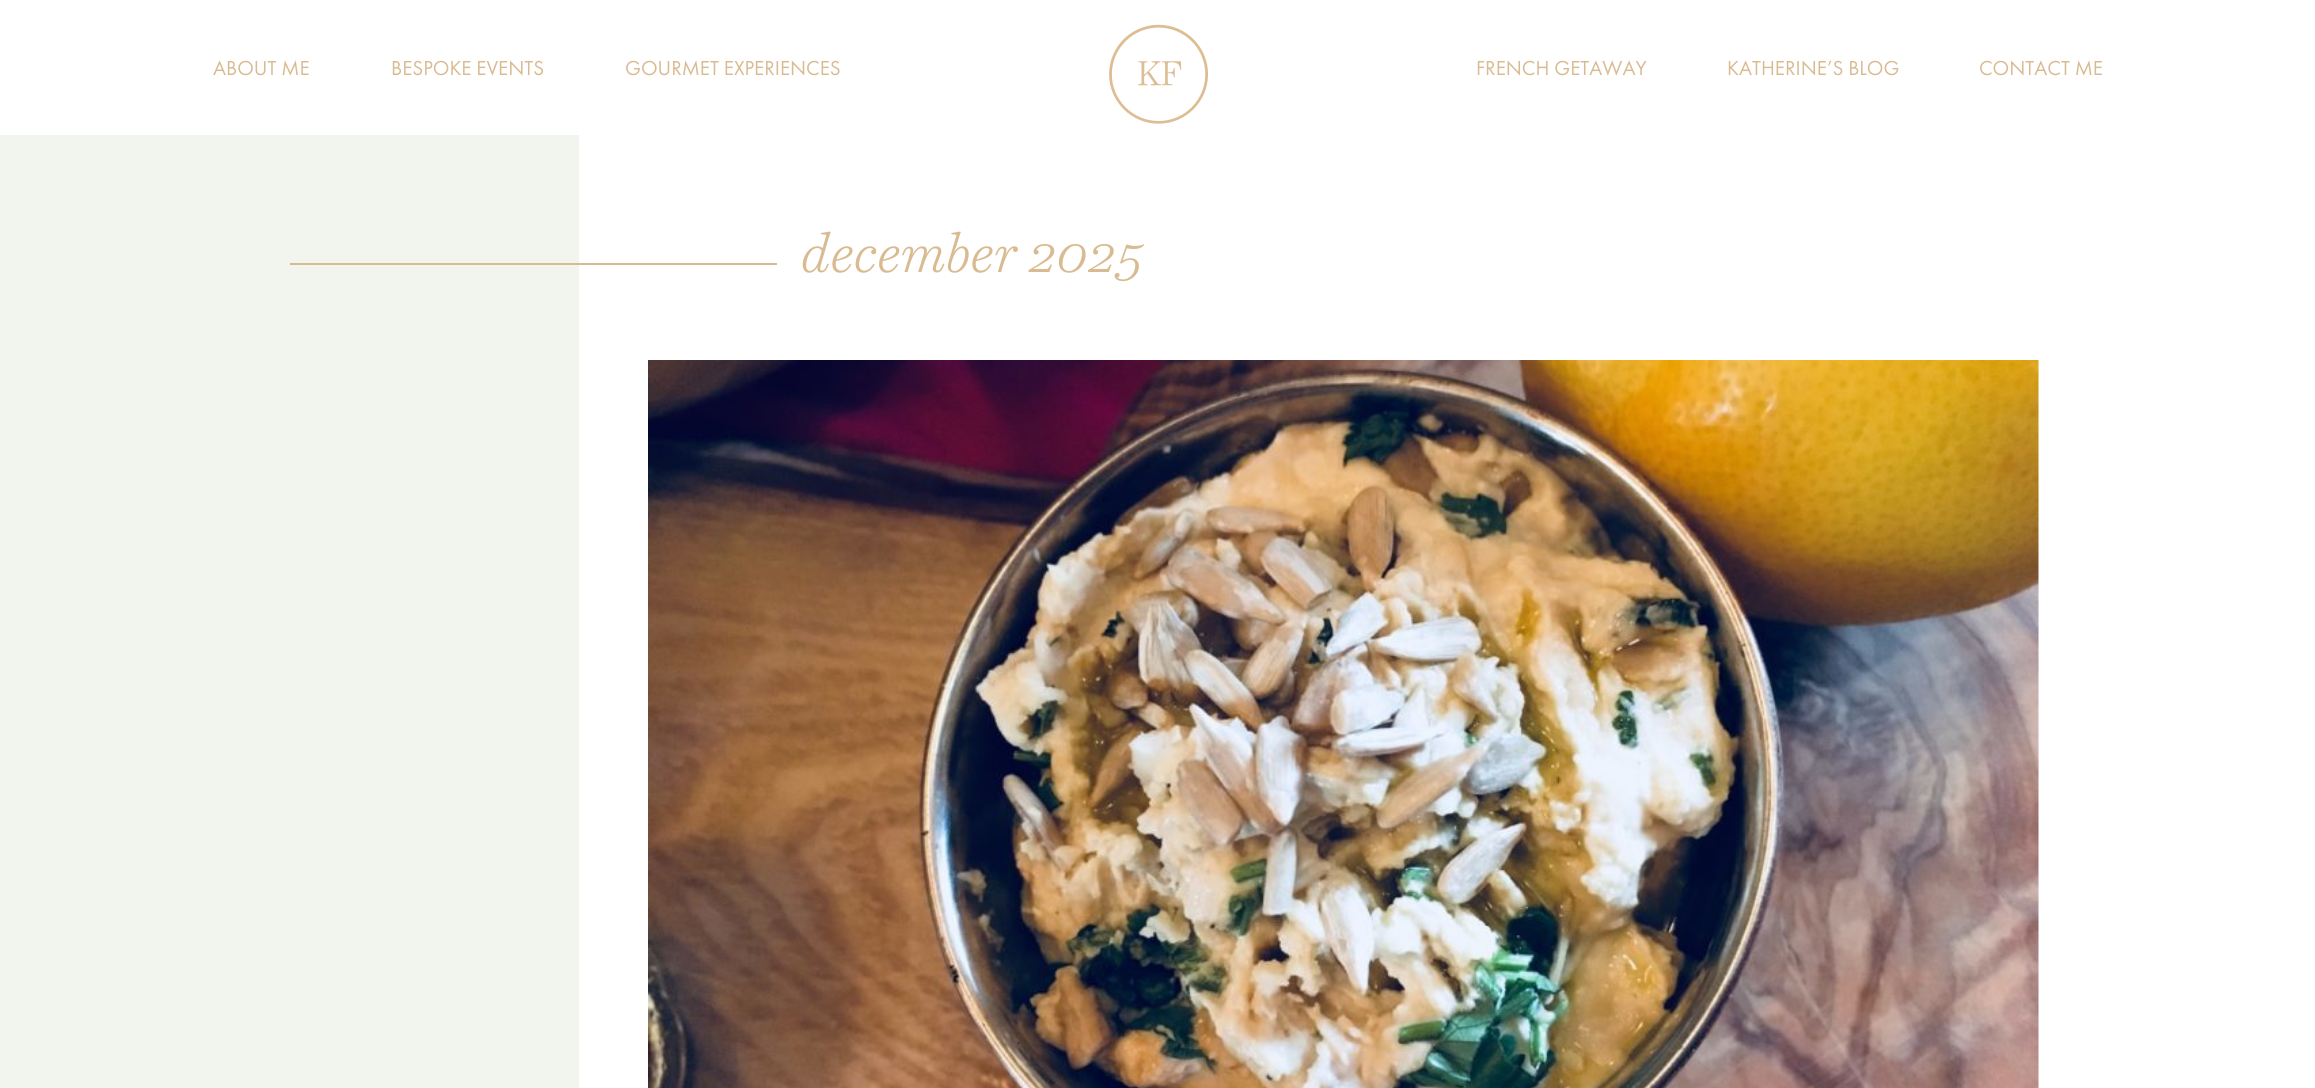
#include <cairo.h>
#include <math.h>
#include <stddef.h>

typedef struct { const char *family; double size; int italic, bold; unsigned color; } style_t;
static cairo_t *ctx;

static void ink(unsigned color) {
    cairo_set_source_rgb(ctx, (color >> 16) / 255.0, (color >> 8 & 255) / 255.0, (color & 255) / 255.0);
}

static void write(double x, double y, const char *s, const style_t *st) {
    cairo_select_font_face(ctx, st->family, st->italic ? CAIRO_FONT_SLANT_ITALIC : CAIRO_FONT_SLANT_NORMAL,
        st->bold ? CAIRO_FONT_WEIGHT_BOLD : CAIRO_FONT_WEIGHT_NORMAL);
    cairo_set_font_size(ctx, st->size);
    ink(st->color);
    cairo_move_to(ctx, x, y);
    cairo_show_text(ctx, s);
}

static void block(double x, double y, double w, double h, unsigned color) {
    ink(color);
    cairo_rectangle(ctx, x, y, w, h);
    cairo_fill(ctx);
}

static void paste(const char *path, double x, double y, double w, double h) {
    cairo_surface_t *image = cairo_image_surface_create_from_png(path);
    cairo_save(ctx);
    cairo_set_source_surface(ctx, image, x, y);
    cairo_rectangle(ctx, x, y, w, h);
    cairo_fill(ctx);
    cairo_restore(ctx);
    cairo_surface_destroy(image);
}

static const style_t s1 = {"Futura PT", 21, 0, 0, 0xd9bb92};
static const style_t s2 = {"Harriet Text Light", 52.5, 1, 0, 0xd9bb92};

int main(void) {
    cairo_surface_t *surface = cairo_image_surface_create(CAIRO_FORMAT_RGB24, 2315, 1088);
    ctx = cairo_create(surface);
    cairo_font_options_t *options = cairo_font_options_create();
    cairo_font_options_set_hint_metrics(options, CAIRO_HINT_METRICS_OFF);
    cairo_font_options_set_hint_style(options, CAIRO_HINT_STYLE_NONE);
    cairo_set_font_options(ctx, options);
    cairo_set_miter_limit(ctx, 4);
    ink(0xffffff);
    cairo_paint(ctx);
    paste("pic1.png", 1109, 24, 100, 100);
    write(213, 75, "ABOUT ME", &s1);
    write(391, 75, "BESPOKE EVENTS", &s1);
    write(625, 75, "GOURMET EXPERIENCES", &s1);
    write(1476, 75, "FRENCH GETAWAY", &s1);
    write(1727, 75, "KATHERINE’S BLOG", &s1);
    write(1979, 75, "CONTACT ME", &s1);
    block(0, 135, 579, 953, 0xf2f4ee);
    block(290, 263, 487, 2, 0xd9bb92);
    write(801, 272, "december 2025", &s2);
    paste("pic2.png", 648, 360, 1391, 728);
    cairo_surface_write_to_png(surface, "screenshot.png");
    cairo_font_options_destroy(options);
    cairo_destroy(ctx);
    cairo_surface_destroy(surface);
    return 0;
}
